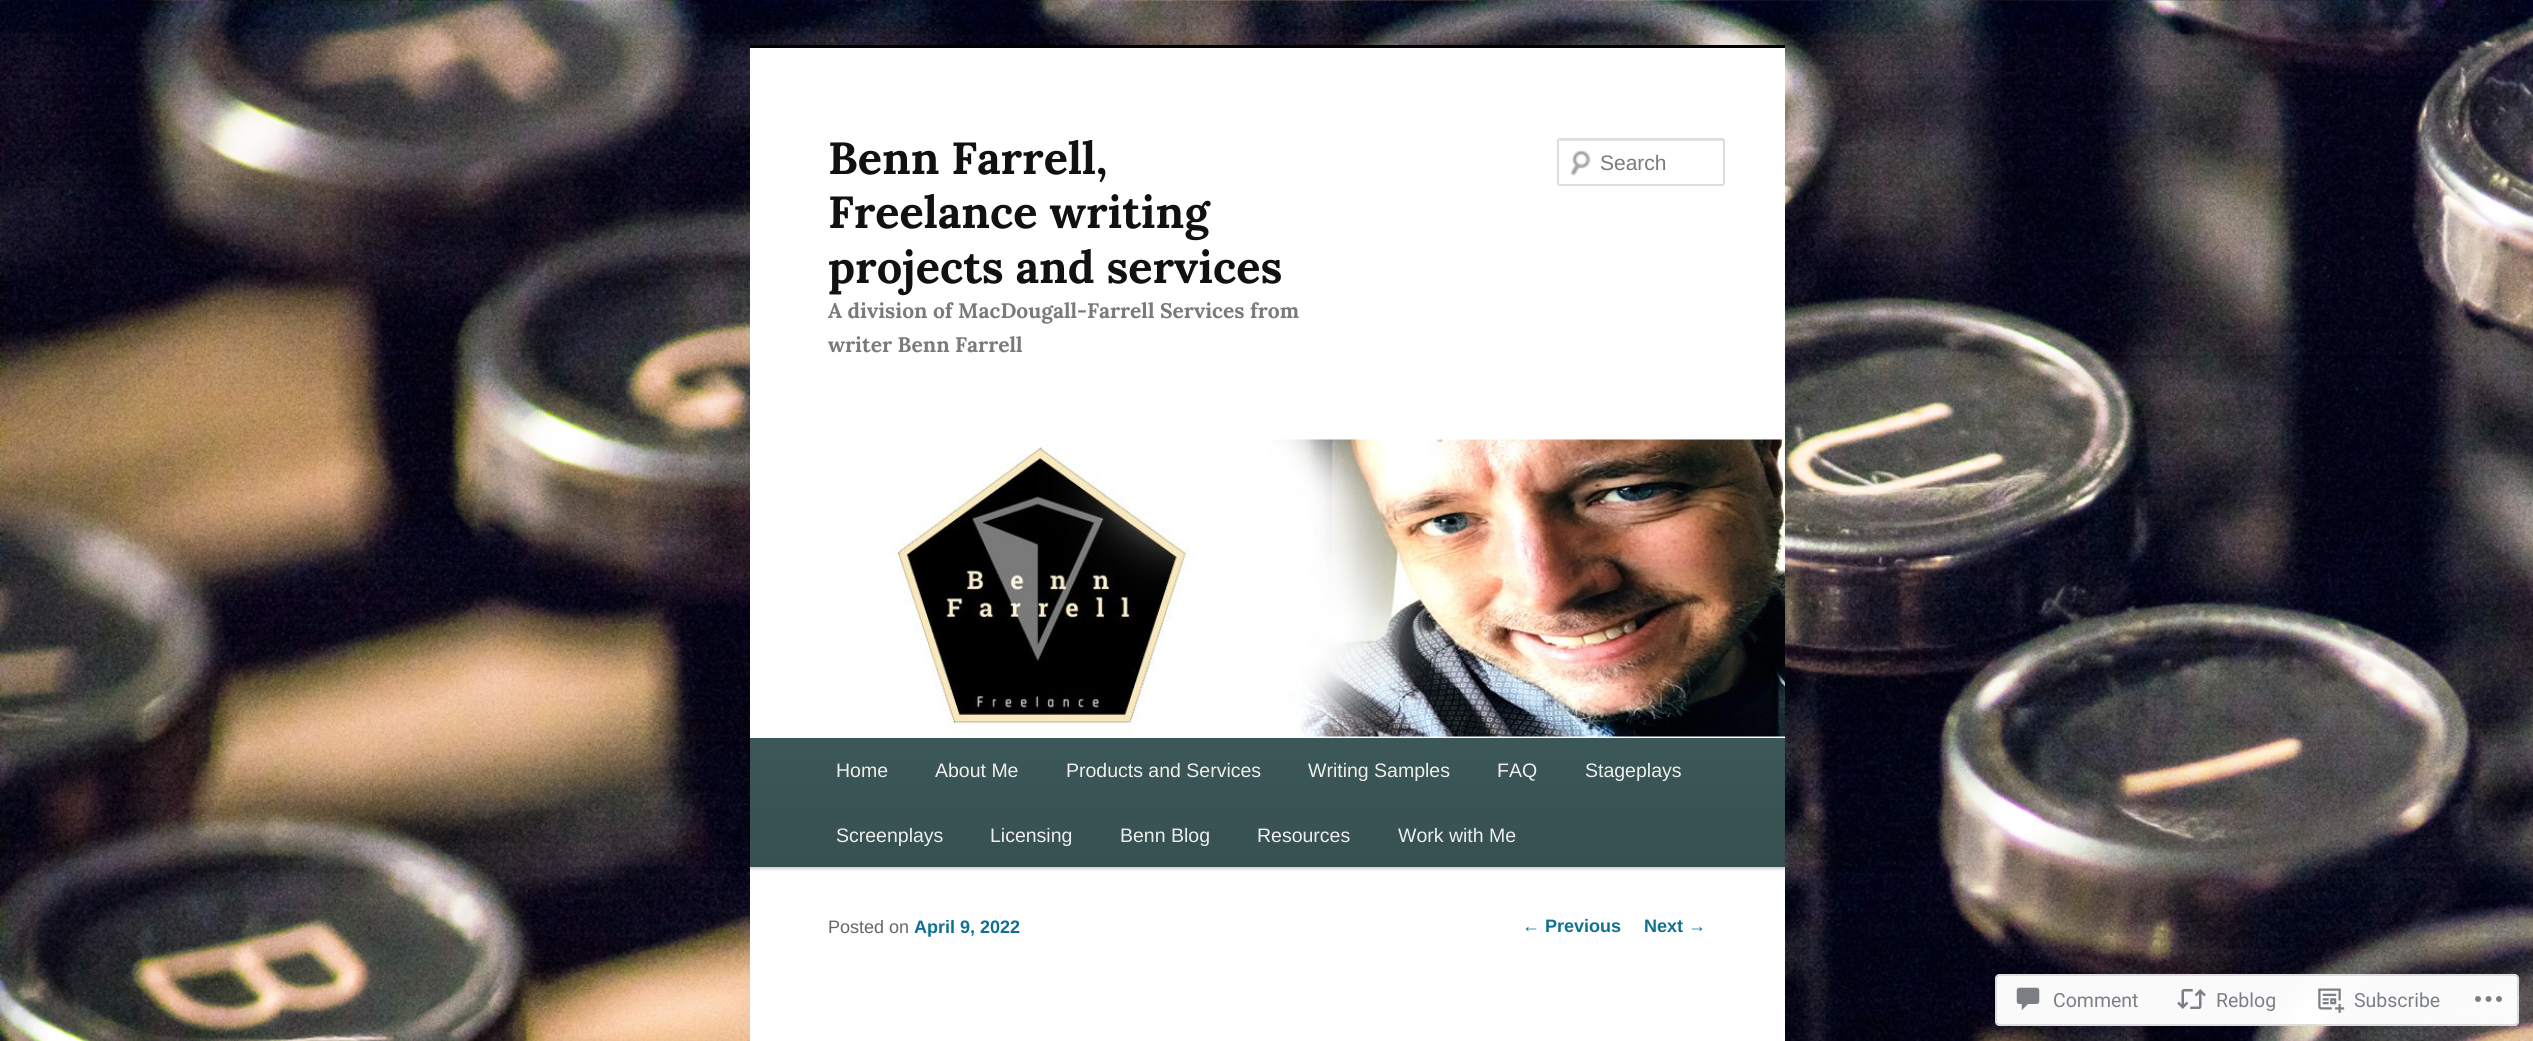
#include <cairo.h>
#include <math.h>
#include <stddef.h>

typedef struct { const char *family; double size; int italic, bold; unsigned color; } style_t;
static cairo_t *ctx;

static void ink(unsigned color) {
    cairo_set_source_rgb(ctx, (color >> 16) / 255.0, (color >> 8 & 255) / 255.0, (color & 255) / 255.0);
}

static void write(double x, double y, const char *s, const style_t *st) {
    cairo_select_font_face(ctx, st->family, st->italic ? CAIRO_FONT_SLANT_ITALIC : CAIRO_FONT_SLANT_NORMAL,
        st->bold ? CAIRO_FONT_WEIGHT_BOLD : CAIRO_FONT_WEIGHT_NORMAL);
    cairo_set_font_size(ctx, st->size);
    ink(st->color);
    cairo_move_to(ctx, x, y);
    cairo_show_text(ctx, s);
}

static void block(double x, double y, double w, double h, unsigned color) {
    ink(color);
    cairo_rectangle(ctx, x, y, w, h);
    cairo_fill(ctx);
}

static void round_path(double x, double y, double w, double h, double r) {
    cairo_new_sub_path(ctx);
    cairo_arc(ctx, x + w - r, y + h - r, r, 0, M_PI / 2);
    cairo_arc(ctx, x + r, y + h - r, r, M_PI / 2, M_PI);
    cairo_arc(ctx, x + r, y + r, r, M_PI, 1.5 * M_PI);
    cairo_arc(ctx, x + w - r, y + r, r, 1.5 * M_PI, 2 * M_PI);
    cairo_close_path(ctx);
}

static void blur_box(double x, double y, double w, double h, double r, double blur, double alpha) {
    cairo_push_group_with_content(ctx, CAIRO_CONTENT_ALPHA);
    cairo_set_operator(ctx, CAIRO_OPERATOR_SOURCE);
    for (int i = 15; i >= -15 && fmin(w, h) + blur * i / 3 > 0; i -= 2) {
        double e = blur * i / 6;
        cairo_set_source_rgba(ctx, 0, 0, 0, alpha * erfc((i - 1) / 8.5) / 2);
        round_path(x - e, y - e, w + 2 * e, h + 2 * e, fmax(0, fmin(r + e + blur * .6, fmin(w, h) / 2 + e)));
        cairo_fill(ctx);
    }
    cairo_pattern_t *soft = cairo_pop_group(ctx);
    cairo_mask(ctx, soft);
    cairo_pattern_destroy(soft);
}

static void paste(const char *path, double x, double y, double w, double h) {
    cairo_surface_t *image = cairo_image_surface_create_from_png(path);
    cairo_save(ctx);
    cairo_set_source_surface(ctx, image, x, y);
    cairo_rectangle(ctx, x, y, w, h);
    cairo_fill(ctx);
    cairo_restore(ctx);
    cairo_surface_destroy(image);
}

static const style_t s1 = {"Lora", 45, 0, 1, 0x111111};
static const style_t s2 = {"Lora", 21, 0, 1, 0x7a7a7a};
static const style_t s3 = {"Arimo", 21, 0, 0, 0x7a7a7a};
static const style_t s4 = {"Arimo", 19.5, 0, 0, 0xeeeeee};
static const style_t s5 = {"Arimo", 18, 0, 0, 0x666666};
static const style_t s6 = {"Arimo", 18, 0, 1, 0x0f7093};
static const style_t s7 = {"Liberation Sans", 18, 0, 0, 0x0f7093};
static const style_t s8 = {"Roboto", 19.5, 0, 0, 0x7b7f84};

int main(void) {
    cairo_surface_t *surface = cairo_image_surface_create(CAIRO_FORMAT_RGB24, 2533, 1041);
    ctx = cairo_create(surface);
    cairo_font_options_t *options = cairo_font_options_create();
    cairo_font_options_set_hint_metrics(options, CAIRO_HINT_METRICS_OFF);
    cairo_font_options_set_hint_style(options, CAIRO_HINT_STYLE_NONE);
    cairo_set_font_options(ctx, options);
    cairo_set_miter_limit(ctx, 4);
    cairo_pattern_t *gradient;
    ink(0xffffff);
    cairo_paint(ctx);
    paste("pic1.png", 0, 0, 2533, 1041);
    block(750, 48, 1035, 993, 0xffffff);
    block(750, 45, 1035, 3, 0x000000);
    write(828, 174, "Benn Farrell,", &s1);
    write(828, 228, "Freelance writing", &s1);
    write(828, 283, "projects and services", &s1);
    write(828, 318, "A division of MacDougall-Farrell Services from", &s2);
    write(828, 352, "writer Benn Farrell", &s2);
    paste("pic2.png", 1570, 150, 21, 26);
    ink(0xe6e6e6);
    cairo_new_path(ctx);
    cairo_move_to(ctx, 1560, 141);
    cairo_line_to(ctx, 1722, 141);
    cairo_curve_to(ctx, 1723, 141, 1724, 142, 1724, 142);
    cairo_line_to(ctx, 1724, 141);
    cairo_line_to(ctx, 1723, 140);
    cairo_line_to(ctx, 1560, 140);
    cairo_line_to(ctx, 1559, 141);
    cairo_close_path(ctx);
    cairo_fill(ctx);
    round_path(1558, 139, 166, 46, 2);
    ink(0xdddddd);
    cairo_stroke(ctx);
    write(1600, 170, "Search", &s3);
    ink(0x000000);
    blur_box(750, 740, 1035, 129, 0, 1.5, 0.2);
    paste("pic3.png", 891, 439, 894, 298);
    gradient = cairo_pattern_create_linear(1268, 738, 1268, 867);
    cairo_pattern_add_color_stop_rgba(gradient, 0, 0.235, 0.341, 0.341, 1);
    cairo_pattern_add_color_stop_rgba(gradient, 1, 0.216, 0.314, 0.314, 1);
    cairo_set_source(ctx, gradient);
    cairo_pattern_destroy(gradient);
    cairo_rectangle(ctx, 750, 738, 1035, 129);
    cairo_fill(ctx);
    write(836, 777, "Home", &s4);
    write(935, 777, "About Me", &s4);
    write(1066, 777, "Products and Services", &s4);
    write(1308, 777, "Writing Samples", &s4);
    write(1497, 777, "FAQ", &s4);
    write(1585, 777, "Stageplays", &s4);
    write(836, 842, "Screenplays", &s4);
    write(990, 842, "Licensing", &s4);
    write(1120, 842, "Benn Blog", &s4);
    write(1257, 842, "Resources", &s4);
    write(1398, 842, "Work with Me", &s4);
    write(828, 933, "Posted on", &s5);
    write(914, 933, "April 9, 2022", &s6);
    write(1522, 932, "←", &s7);
    write(1545, 932, "Previous", &s6);
    write(1644, 932, "Next", &s6);
    write(1688, 932, "→", &s7);
    cairo_set_source_rgba(ctx, 1, 1, 1, 0.98);
    round_path(1995, 974, 524, 52, 5);
    cairo_fill(ctx);
    round_path(1996, 975, 522, 50, 4);
    cairo_set_source_rgba(ctx, 0.863, 0.863, 0.871, 0.98);
    cairo_stroke(ctx);
    paste("pic4.png", 2016, 987, 24, 24);
    write(2053, 1007, "Comment", &s8);
    paste("pic5.png", 2177, 989, 29, 20);
    write(2216, 1007, "Reblog", &s8);
    paste("pic6.png", 2318, 988, 27, 25);
    write(2354, 1007, "Subscribe", &s8);
    paste("pic7.png", 2475, 996, 27, 6);
    cairo_surface_write_to_png(surface, "screenshot.png");
    cairo_font_options_destroy(options);
    cairo_destroy(ctx);
    cairo_surface_destroy(surface);
    return 0;
}
